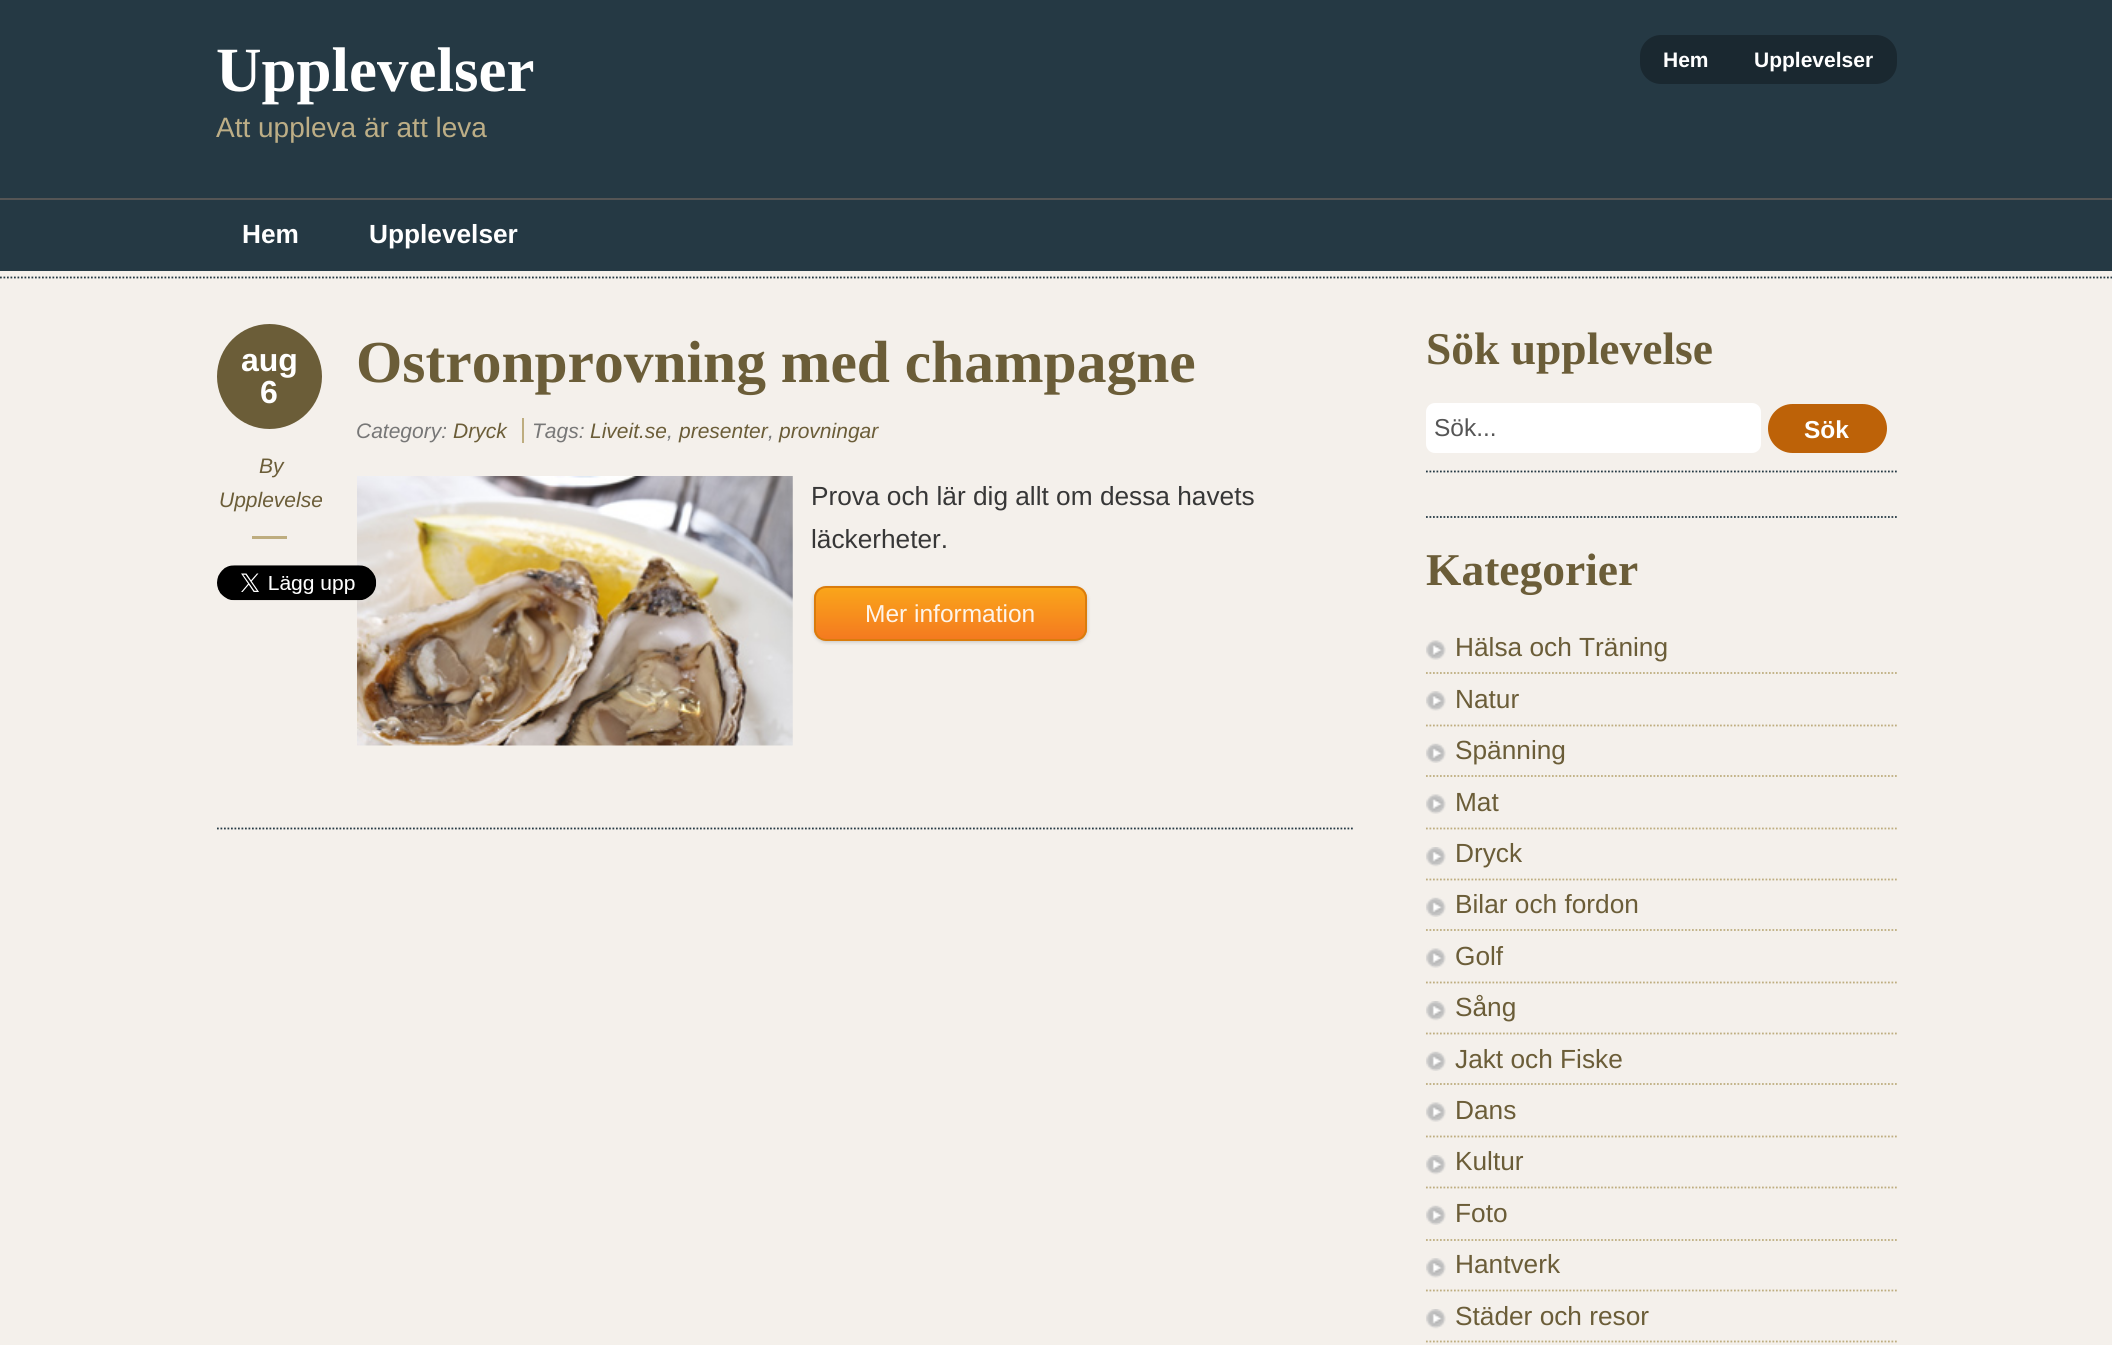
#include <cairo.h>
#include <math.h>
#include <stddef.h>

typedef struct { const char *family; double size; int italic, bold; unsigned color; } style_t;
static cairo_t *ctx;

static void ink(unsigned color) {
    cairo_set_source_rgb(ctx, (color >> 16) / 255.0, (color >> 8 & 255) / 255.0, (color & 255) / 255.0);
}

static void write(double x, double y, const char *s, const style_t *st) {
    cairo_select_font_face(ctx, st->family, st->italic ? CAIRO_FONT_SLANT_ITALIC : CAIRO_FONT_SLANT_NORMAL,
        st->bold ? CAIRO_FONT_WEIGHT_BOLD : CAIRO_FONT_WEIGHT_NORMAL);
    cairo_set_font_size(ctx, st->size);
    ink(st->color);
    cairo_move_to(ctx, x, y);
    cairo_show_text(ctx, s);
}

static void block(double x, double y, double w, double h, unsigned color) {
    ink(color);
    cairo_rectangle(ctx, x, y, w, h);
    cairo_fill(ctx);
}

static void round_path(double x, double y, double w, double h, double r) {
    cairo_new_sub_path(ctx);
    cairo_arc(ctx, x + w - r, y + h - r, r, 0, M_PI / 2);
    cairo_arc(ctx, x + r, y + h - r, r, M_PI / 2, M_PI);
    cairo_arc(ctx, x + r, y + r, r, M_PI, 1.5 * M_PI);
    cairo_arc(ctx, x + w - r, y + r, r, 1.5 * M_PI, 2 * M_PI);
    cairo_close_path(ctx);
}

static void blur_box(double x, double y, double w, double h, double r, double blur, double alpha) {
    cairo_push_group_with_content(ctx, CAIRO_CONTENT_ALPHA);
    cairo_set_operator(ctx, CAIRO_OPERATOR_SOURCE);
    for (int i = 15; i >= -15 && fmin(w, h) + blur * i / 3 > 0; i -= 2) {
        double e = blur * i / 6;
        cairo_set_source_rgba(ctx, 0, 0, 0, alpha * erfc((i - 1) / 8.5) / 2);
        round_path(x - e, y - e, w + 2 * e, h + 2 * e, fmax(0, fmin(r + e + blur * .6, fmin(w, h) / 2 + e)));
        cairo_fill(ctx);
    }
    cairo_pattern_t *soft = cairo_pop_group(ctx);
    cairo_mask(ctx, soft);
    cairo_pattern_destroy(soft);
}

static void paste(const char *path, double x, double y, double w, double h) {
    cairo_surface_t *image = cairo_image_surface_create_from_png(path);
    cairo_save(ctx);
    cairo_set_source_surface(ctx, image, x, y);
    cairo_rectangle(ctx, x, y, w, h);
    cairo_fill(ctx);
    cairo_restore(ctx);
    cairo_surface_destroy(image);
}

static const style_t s1 = {"Liberation Serif", 63, 0, 1, 0xffffff};
static const style_t s2 = {"Liberation Sans", 28, 0, 0, 0xbdae86};
static const style_t s3 = {"Liberation Sans", 21, 0, 1, 0xffffff};
static const style_t s4 = {"Liberation Sans", 26.25, 0, 1, 0xffffff};
static const style_t s5 = {"Liberation Sans", 32, 0, 1, 0xffffff};
static const style_t s6 = {"Liberation Sans", 21, 1, 0, 0x6b5d38};
static const style_t s7 = {"Liberation Serif", 59.5, 0, 1, 0x6b5d38};
static const style_t s8 = {"Liberation Sans", 21, 1, 0, 0x777777};
static const style_t s9 = {"Liberation Sans", 26.25, 0, 0, 0x373737};
static const style_t s10 = {"Liberation Sans", 24.5, 0, 0, 0xfef4e9};
static const style_t s11 = {"Liberation Serif", 45.5, 0, 1, 0x6b5d38};
static const style_t s12 = {"Liberation Sans", 24.5, 0, 0, 0x555555};
static const style_t s13 = {"Liberation Sans", 24.5, 0, 1, 0xffffff};
static const style_t s14 = {"Liberation Sans", 26.25, 0, 0, 0x6b5d38};

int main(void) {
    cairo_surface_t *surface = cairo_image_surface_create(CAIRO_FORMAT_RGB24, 2112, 1345);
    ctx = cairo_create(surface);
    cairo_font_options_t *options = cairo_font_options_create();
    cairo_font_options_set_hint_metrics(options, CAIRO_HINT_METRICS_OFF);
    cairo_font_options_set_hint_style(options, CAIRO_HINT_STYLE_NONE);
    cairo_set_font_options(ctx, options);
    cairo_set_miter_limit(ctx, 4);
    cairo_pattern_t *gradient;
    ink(0xf4f0eb);
    cairo_paint(ctx);
    block(0, 0, 2112, 271, 0x253944);
    write(216, 91, "Upplevelser", &s1);
    write(216, 137, "Att uppleva är att leva", &s2);
    ink(0x1a2830);
    round_path(1640, 35, 257, 49, 21);
    cairo_fill(ctx);
    write(1663, 67, "Hem", &s3);
    write(1754, 67, "Upplevelser", &s3);
    block(0, 198, 2112, 2, 0x555555);
    write(242, 243, "Hem", &s4);
    write(369, 243, "Upplevelser", &s4);
    cairo_new_path(ctx);
    cairo_move_to(ctx, 0, 277.5);
    cairo_line_to(ctx, 2112, 277.5);
    ink(0x253944);
    cairo_set_line_width(ctx, 1.8);
    cairo_set_dash(ctx, (double[]){1.75, 1.75}, 2, 0);
    cairo_stroke(ctx);
    cairo_new_path(ctx);
    cairo_move_to(ctx, 217, 828.5);
    cairo_line_to(ctx, 1354.5, 828.5);
    cairo_stroke(ctx);
    ink(0x6b5d38);
    cairo_arc(ctx, 269.5, 376.5, 52.5, 0, 2 * M_PI);
    cairo_fill(ctx);
    write(241, 371, "aug", &s5);
    write(260, 403, "6", &s5);
    write(259, 473, "By", &s6);
    write(219, 507, "Upplevelse", &s6);
    block(252, 536, 35, 3, 0xbead7f);
    paste("pic2.png", 357, 476, 436, 270);
    paste("pic1.png", 217, 565, 160, 36);
    write(356, 382, "Ostronprovning med champagne", &s7);
    write(356, 438, "Category:", &s8);
    write(453, 438, "Dryck", &s6);
    write(532, 438, "Tags:", &s8);
    block(522, 418, 2, 25, 0xbead7f);
    write(590, 438, "Liveit.se", &s6);
    write(667, 438, ",", &s8);
    write(679, 438, "presenter", &s6);
    write(768, 438, ",", &s8);
    write(779, 438, "provningar", &s6);
    write(811, 505, "Prova och lär dig allt om dessa havets", &s9);
    write(811, 548, "läckerheter.", &s9);
    ink(0x000000);
    blur_box(814, 588, 273, 54, 12, 2, 0.2);
    cairo_save(ctx);
    round_path(814, 586, 273, 55, 12);
    cairo_clip(ctx);
    gradient = cairo_pattern_create_linear(816, 588, 816, 639);
    cairo_pattern_add_color_stop_rgba(gradient, 0, 0.98, 0.647, 0.102, 1);
    cairo_pattern_add_color_stop_rgba(gradient, 1, 0.957, 0.478, 0.125, 1);
    cairo_set_source(ctx, gradient);
    cairo_pattern_destroy(gradient);
    cairo_rectangle(ctx, 814, 588, 273, 51);
    cairo_fill(ctx);
    cairo_restore(ctx);
    round_path(815, 587, 271, 53, 11);
    ink(0xda7c0c);
    cairo_set_line_width(ctx, 2);
    cairo_set_dash(ctx, NULL, 0, 0);
    cairo_stroke(ctx);
    write(865, 622, "Mer information", &s10);
    cairo_new_path(ctx);
    cairo_move_to(ctx, 1426, 471.5);
    cairo_line_to(ctx, 1897, 471.5);
    ink(0x253944);
    cairo_set_line_width(ctx, 1.8);
    cairo_set_dash(ctx, (double[]){1.75, 1.75}, 2, 0);
    cairo_stroke(ctx);
    write(1426, 364, "Sök upplevelse", &s11);
    ink(0xffffff);
    round_path(1426, 403, 335, 50, 9);
    cairo_fill(ctx);
    write(1434, 436, "Sök...", &s12);
    ink(0xbd6208);
    round_path(1768, 404, 119, 49, 24.5);
    cairo_fill(ctx);
    write(1804, 438, "Sök", &s13);
    cairo_new_path(ctx);
    cairo_move_to(ctx, 1426, 517);
    cairo_line_to(ctx, 1897, 517);
    ink(0x253944);
    cairo_stroke(ctx);
    write(1426, 585, "Kategorier", &s11);
    paste("pic3.png", 1426, 640, 20, 20);
    cairo_new_path(ctx);
    cairo_move_to(ctx, 1426, 673);
    cairo_line_to(ctx, 1897, 673);
    ink(0xbead7f);
    cairo_stroke(ctx);
    write(1455, 656, "Hälsa och Träning", &s14);
    paste("pic4.png", 1426, 691, 20, 20);
    cairo_new_path(ctx);
    cairo_move_to(ctx, 1426, 725.5);
    cairo_line_to(ctx, 1897, 725.5);
    ink(0xbead7f);
    cairo_stroke(ctx);
    write(1455, 708, "Natur", &s14);
    paste("pic5.png", 1426, 743, 20, 20);
    cairo_new_path(ctx);
    cairo_move_to(ctx, 1426, 776);
    cairo_line_to(ctx, 1897, 776);
    ink(0xbead7f);
    cairo_stroke(ctx);
    write(1455, 759, "Spänning", &s14);
    paste("pic3.png", 1426, 794, 20, 20);
    cairo_new_path(ctx);
    cairo_move_to(ctx, 1426, 828.5);
    cairo_line_to(ctx, 1897, 828.5);
    ink(0xbead7f);
    cairo_stroke(ctx);
    write(1455, 811, "Mat", &s14);
    paste("pic6.png", 1426, 847, 20, 20);
    cairo_new_path(ctx);
    cairo_move_to(ctx, 1426, 879.5);
    cairo_line_to(ctx, 1897, 879.5);
    ink(0xbead7f);
    cairo_stroke(ctx);
    write(1455, 862, "Dryck", &s14);
    paste("pic5.png", 1426, 897, 20, 20);
    cairo_new_path(ctx);
    cairo_move_to(ctx, 1426, 930);
    cairo_line_to(ctx, 1897, 930);
    ink(0xbead7f);
    cairo_stroke(ctx);
    write(1455, 913, "Bilar och fordon", &s14);
    paste("pic3.png", 1426, 948, 20, 20);
    cairo_new_path(ctx);
    cairo_move_to(ctx, 1426, 982.5);
    cairo_line_to(ctx, 1897, 982.5);
    ink(0xbead7f);
    cairo_stroke(ctx);
    write(1455, 965, "Golf", &s14);
    paste("pic6.png", 1426, 1001, 20, 20);
    cairo_new_path(ctx);
    cairo_move_to(ctx, 1426, 1033.5);
    cairo_line_to(ctx, 1897, 1033.5);
    ink(0xbead7f);
    cairo_stroke(ctx);
    write(1455, 1016, "Sång", &s14);
    paste("pic5.png", 1426, 1051, 20, 20);
    cairo_new_path(ctx);
    cairo_move_to(ctx, 1426, 1084);
    cairo_line_to(ctx, 1897, 1084);
    ink(0xbead7f);
    cairo_stroke(ctx);
    write(1455, 1068, "Jakt och Fiske", &s14);
    paste("pic3.png", 1426, 1102, 20, 20);
    cairo_new_path(ctx);
    cairo_move_to(ctx, 1426, 1136.5);
    cairo_line_to(ctx, 1897, 1136.5);
    ink(0xbead7f);
    cairo_stroke(ctx);
    write(1455, 1119, "Dans", &s14);
    paste("pic6.png", 1426, 1155, 20, 20);
    cairo_new_path(ctx);
    cairo_move_to(ctx, 1426, 1187.5);
    cairo_line_to(ctx, 1897, 1187.5);
    ink(0xbead7f);
    cairo_stroke(ctx);
    write(1455, 1170, "Kultur", &s14);
    paste("pic5.png", 1426, 1205, 20, 20);
    cairo_new_path(ctx);
    cairo_move_to(ctx, 1426, 1240);
    cairo_line_to(ctx, 1897, 1240);
    ink(0xbead7f);
    cairo_stroke(ctx);
    write(1455, 1222, "Foto", &s14);
    paste("pic4.png", 1426, 1258, 20, 20);
    cairo_new_path(ctx);
    cairo_move_to(ctx, 1426, 1290.5);
    cairo_line_to(ctx, 1897, 1290.5);
    ink(0xbead7f);
    cairo_stroke(ctx);
    write(1455, 1273, "Hantverk", &s14);
    paste("pic6.png", 1426, 1309, 20, 20);
    cairo_new_path(ctx);
    cairo_move_to(ctx, 1426, 1341.5);
    cairo_line_to(ctx, 1897, 1341.5);
    ink(0xbead7f);
    cairo_stroke(ctx);
    write(1455, 1325, "Städer och resor", &s14);
    cairo_surface_write_to_png(surface, "screenshot.png");
    cairo_font_options_destroy(options);
    cairo_destroy(ctx);
    cairo_surface_destroy(surface);
    return 0;
}
